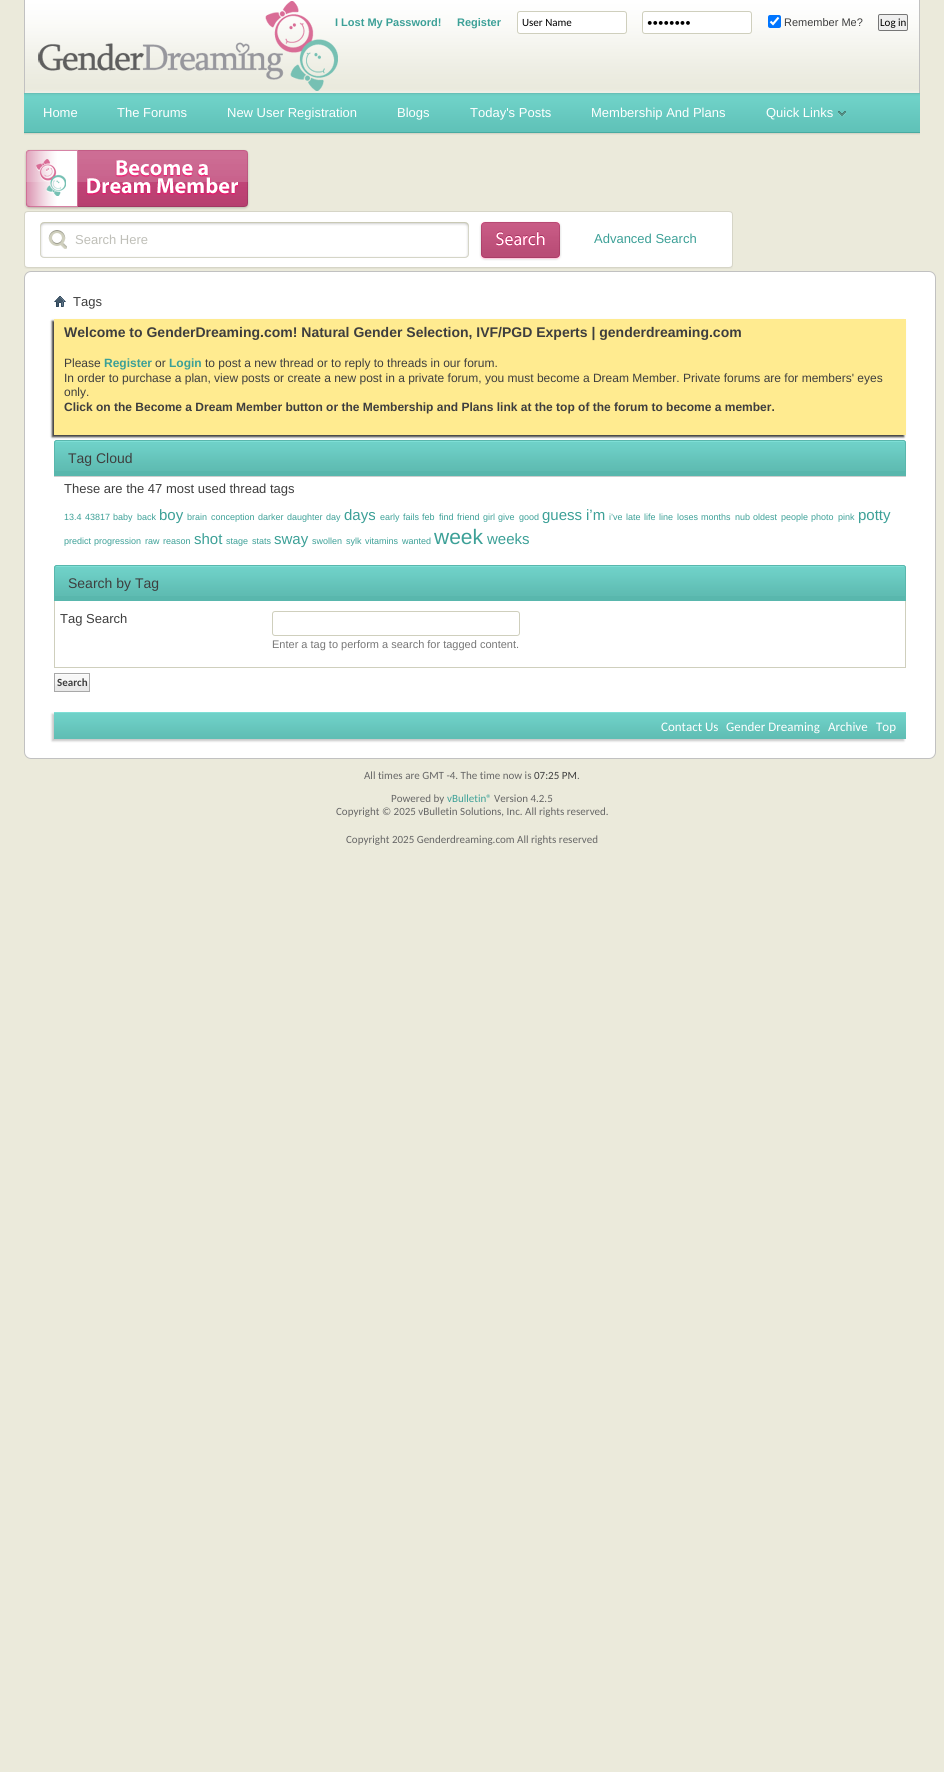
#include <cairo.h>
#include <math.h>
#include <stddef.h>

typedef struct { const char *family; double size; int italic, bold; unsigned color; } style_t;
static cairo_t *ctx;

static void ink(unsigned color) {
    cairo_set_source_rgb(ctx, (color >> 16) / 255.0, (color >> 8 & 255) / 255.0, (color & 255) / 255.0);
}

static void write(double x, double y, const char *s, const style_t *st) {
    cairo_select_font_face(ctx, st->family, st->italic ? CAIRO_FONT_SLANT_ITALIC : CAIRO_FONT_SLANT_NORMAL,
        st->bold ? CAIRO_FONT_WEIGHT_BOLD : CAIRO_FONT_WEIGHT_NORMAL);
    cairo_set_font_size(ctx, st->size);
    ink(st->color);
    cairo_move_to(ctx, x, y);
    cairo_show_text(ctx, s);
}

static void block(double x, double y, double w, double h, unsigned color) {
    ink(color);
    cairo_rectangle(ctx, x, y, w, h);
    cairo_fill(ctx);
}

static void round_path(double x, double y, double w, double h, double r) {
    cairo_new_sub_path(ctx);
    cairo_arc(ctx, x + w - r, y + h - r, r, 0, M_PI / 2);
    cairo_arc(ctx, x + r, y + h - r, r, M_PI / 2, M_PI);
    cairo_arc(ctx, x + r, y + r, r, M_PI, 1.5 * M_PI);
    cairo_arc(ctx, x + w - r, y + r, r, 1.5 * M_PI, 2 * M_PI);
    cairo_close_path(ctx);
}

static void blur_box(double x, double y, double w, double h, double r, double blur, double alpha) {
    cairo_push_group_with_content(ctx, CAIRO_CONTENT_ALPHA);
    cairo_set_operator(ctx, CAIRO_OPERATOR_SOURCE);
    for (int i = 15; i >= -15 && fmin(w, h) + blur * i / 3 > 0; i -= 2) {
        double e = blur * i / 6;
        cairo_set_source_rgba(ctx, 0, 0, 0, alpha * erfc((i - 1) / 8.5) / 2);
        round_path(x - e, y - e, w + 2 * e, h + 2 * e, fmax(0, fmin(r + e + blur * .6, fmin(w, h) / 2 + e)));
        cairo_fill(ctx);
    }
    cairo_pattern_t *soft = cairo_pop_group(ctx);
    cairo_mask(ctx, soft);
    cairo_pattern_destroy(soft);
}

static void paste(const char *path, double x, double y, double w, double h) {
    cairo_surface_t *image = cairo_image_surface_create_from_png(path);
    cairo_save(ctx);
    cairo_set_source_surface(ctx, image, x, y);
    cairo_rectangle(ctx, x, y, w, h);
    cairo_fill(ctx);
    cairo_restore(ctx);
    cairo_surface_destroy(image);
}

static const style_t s1 = {"Liberation Sans", 11, 0, 1, 0x3ca097};
static const style_t s2 = {"Carlito", 11, 0, 0, 0x000000};
static const style_t s3 = {"Liberation Sans", 11, 0, 0, 0x3e3e3e};
static const style_t s4 = {"Liberation Sans", 13, 0, 0, 0xffffff};
static const style_t s5 = {"Liberation Sans", 13, 0, 0, 0xbfbfb8};
static const style_t s6 = {"Liberation Sans", 13, 0, 0, 0x3ca097};
static const style_t s7 = {"Liberation Sans", 13, 0, 0, 0x3e3e3e};
static const style_t s8 = {"Liberation Sans", 14, 0, 1, 0x3e3e3e};
static const style_t s9 = {"Liberation Sans", 12, 0, 0, 0x3e3e3e};
static const style_t s10 = {"Liberation Sans", 12, 0, 1, 0x3ca097};
static const style_t s11 = {"Liberation Sans", 12, 0, 1, 0x3e3e3e};
static const style_t s12 = {"Liberation Sans", 14, 0, 0, 0x3e3e3e};
static const style_t s13 = {"Liberation Sans", 9, 0, 0, 0x3ca097};
static const style_t s14 = {"Liberation Sans", 15, 0, 0, 0x3ca097};
static const style_t s15 = {"Liberation Sans", 21, 0, 0, 0x3ca097};
static const style_t s16 = {"Liberation Sans", 11, 0, 0, 0x777777};
static const style_t s17 = {"Carlito", 11, 0, 1, 0x3e3e3e};
static const style_t s18 = {"Carlito", 13, 0, 0, 0xffffff};
static const style_t s19 = {"Carlito", 11, 0, 0, 0x666666};
static const style_t s20 = {"Carlito", 11, 0, 0, 0x3e3e3e};
static const style_t s21 = {"Carlito", 11, 0, 0, 0x3ca097};

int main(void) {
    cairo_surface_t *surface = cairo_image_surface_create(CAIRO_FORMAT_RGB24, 944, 1772);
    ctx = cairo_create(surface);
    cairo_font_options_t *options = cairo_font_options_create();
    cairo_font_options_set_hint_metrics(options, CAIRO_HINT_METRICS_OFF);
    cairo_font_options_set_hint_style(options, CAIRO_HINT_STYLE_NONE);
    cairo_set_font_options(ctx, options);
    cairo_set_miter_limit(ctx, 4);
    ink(0xebeadb);
    cairo_paint(ctx);
    paste("pic1.png", 25, 0, 894, 93);
    block(919, 0, 1, 93, 0xc1c1c1);
    block(24, 0, 1, 93, 0xc1c1c1);
    paste("pic2.png", 38, 1, 300, 90);
    write(335, 26, "I Lost My Password!", &s1);
    write(457, 26, "Register", &s1);
    ink(0xffffff);
    round_path(517.5, 11.5, 109, 22, 2.5);
    cairo_fill_preserve(ctx);
    ink(0xcfcfbd);
    cairo_set_line_width(ctx, 1);
    cairo_stroke(ctx);
    write(522, 26, "User Name", &s2);
    ink(0xffffff);
    round_path(642.5, 11.5, 109, 22, 2.5);
    cairo_fill_preserve(ctx);
    ink(0xcfcfbd);
    cairo_stroke(ctx);
    write(647, 26, "••••••••", &s2);
    ink(0x0075ff);
    round_path(768, 15, 13, 13, 2);
    cairo_fill(ctx);
    cairo_new_path(ctx);
    cairo_move_to(ctx, 770.5, 21.5);
    cairo_line_to(ctx, 773, 24);
    cairo_line_to(ctx, 778.5, 17.5);
    ink(0xffffff);
    cairo_set_line_width(ctx, 2.1);
    cairo_stroke(ctx);
    write(784, 26, "Remember Me?", &s3);
    ink(0xefefef);
    round_path(878.5, 14.5, 29, 16, 1.5);
    cairo_fill_preserve(ctx);
    ink(0x767676);
    cairo_set_line_width(ctx, 1);
    cairo_stroke(ctx);
    write(880, 26, "Log in", &s2);
    paste("pic3.png", 24, 93, 896, 42);
    write(43, 117, "Home", &s4);
    write(117, 117, "The Forums", &s4);
    write(227, 117, "New User Registration", &s4);
    write(397, 117, "Blogs", &s4);
    write(470, 117, "Today's Posts", &s4);
    write(591, 117, "Membership And Plans", &s4);
    write(766, 117, "Quick Links", &s4);
    paste("pic4.png", 838, 111, 8, 5);
    paste("pic5.png", 24, 149, 226, 61);
    paste("pic6.png", 24, 211, 6, 58);
    paste("pic7.png", 727, 211, 6, 58);
    paste("pic8.png", 30, 211, 697, 58);
    paste("pic9.png", 40, 222, 429, 36);
    write(75, 244, "Search Here", &s5);
    paste("pic10.png", 479, 221, 83, 40);
    write(594, 243, "Advanced Search", &s6);
    ink(0xffffff);
    round_path(24.5, 271.5, 911, 487, 6.5);
    cairo_fill_preserve(ctx);
    ink(0xc1c1c1);
    cairo_stroke(ctx);
    paste("pic11.png", 54, 296, 12, 11);
    write(73, 306, "Tags", &s7);
    ink(0x3e3e3e);
    blur_box(52, 321, 852, 116, 0, 1, 1);
    block(54, 319, 852, 116, 0xffeb90);
    write(64, 337, "Welcome to GenderDreaming.com! Natural Gender Selection, IVF/PGD Experts | genderdreaming.com", &s8);
    write(64, 367, "Please", &s9);
    write(104, 367, "Register", &s10);
    write(155, 367, "or", &s9);
    write(169, 367, "Login", &s10);
    write(205, 367, "to post a new thread or to reply to threads in our forum.", &s9);
    write(64, 382, "In order to purchase a plan, view posts or create a new post in a private forum, you must become a Dream Member. Private forums are for members' eyes", &s9);
    write(64, 396, "only.", &s9);
    write(64, 411, "Click on the Become a Dream Member button or the Membership and Plans link at the top of the forum to become a member.", &s11);
    ink(0x59b7ad);
    cairo_new_path(ctx);
    cairo_move_to(ctx, 57, 440);
    cairo_line_to(ctx, 903, 440);
    cairo_curve_to(ctx, 904.5, 440, 906, 441.5, 906, 443);
    cairo_line_to(ctx, 906, 476);
    cairo_line_to(ctx, 54, 476);
    cairo_line_to(ctx, 54, 443);
    cairo_curve_to(ctx, 54, 441.5, 55.5, 440, 57, 440);
    cairo_close_path(ctx);
    cairo_fill(ctx);
    paste("pic12.png", 54, 441, 852, 30);
    cairo_new_path(ctx);
    cairo_move_to(ctx, 57, 440.5);
    cairo_line_to(ctx, 903, 440.5);
    cairo_curve_to(ctx, 904.5, 440.5, 905.5, 441.5, 905.5, 443);
    cairo_line_to(ctx, 905.5, 475.5);
    cairo_line_to(ctx, 54.5, 475.5);
    cairo_line_to(ctx, 54.5, 443);
    cairo_curve_to(ctx, 54.5, 441.5, 55.5, 440.5, 57, 440.5);
    cairo_close_path(ctx);
    cairo_stroke(ctx);
    write(68, 463, "Tag Cloud", &s12);
    block(54, 476, 852, 1, 0xcecece);
    write(64, 493, "These are the 47 most used thread tags", &s7);
    write(64, 520, "13.4", &s13);
    write(85, 520, "43817", &s13);
    write(113, 520, "baby", &s13);
    write(137, 520, "back", &s13);
    write(159, 520, "boy", &s14);
    write(187, 520, "brain", &s13);
    write(211, 520, "conception", &s13);
    write(258, 520, "darker", &s13);
    write(287, 520, "daughter", &s13);
    write(326, 520, "day", &s13);
    write(344, 520, "days", &s14);
    write(380, 520, "early", &s13);
    write(403, 520, "fails", &s13);
    write(422, 520, "feb", &s13);
    write(439, 520, "find", &s13);
    write(457, 520, "friend", &s13);
    write(483, 520, "girl", &s13);
    write(498, 520, "give", &s13);
    write(519, 520, "good", &s13);
    write(542, 520, "guess", &s14);
    write(586, 520, "i’m", &s14);
    write(609, 520, "i’ve", &s13);
    write(626, 520, "late", &s13);
    write(644, 520, "life", &s13);
    write(659, 520, "line", &s13);
    write(677, 520, "loses", &s13);
    write(701, 520, "months", &s13);
    write(735, 520, "nub", &s13);
    write(753, 520, "oldest", &s13);
    write(781, 520, "people", &s13);
    write(811, 520, "photo", &s13);
    write(838, 520, "pink", &s13);
    write(858, 520, "potty", &s14);
    write(64, 544, "predict", &s13);
    write(94, 544, "progression", &s13);
    write(145, 544, "raw", &s13);
    write(163, 544, "reason", &s13);
    write(194, 544, "shot", &s14);
    write(226, 544, "stage", &s13);
    write(252, 544, "stats", &s13);
    write(274, 544, "sway", &s14);
    write(312, 544, "swollen", &s13);
    write(346, 544, "sylk", &s13);
    write(365, 544, "vitamins", &s13);
    write(402, 544, "wanted", &s13);
    write(434, 544, "week", &s15);
    write(487, 544, "weeks", &s14);
    ink(0x59b7ad);
    cairo_new_path(ctx);
    cairo_move_to(ctx, 57, 565);
    cairo_line_to(ctx, 903, 565);
    cairo_curve_to(ctx, 904.5, 565, 906, 566.5, 906, 568);
    cairo_line_to(ctx, 906, 601);
    cairo_line_to(ctx, 54, 601);
    cairo_line_to(ctx, 54, 568);
    cairo_curve_to(ctx, 54, 566.5, 55.5, 565, 57, 565);
    cairo_close_path(ctx);
    cairo_fill(ctx);
    paste("pic12.png", 54, 566, 852, 30);
    cairo_new_path(ctx);
    cairo_move_to(ctx, 57, 565.5);
    cairo_line_to(ctx, 903, 565.5);
    cairo_curve_to(ctx, 904.5, 565.5, 905.5, 566.5, 905.5, 568);
    cairo_line_to(ctx, 905.5, 600.5);
    cairo_line_to(ctx, 54.5, 600.5);
    cairo_line_to(ctx, 54.5, 568);
    cairo_curve_to(ctx, 54.5, 566.5, 55.5, 565.5, 57, 565.5);
    cairo_close_path(ctx);
    cairo_stroke(ctx);
    write(68, 588, "Search by Tag", &s12);
    block(905, 601, 1, 67, 0xcfcfbd);
    block(54, 667, 852, 1, 0xcfcfbd);
    block(54, 601, 1, 67, 0xcfcfbd);
    write(60, 623, "Tag Search", &s7);
    round_path(272.5, 611.5, 247, 24, 2.5);
    ink(0xcfcfbd);
    cairo_stroke(ctx);
    write(272, 648, "Enter a tag to perform a search for tagged content.", &s16);
    block(55, 674, 34, 17, 0xe9e9e9);
    paste("pic13.png", 55, 674, 34, 12);
    cairo_rectangle(ctx, 54.5, 673.5, 35, 18);
    ink(0xa8a8a8);
    cairo_stroke(ctx);
    write(57, 686, "Search", &s17);
    ink(0xc8c8c8);
    blur_box(52, 714, 852, 27, 0, 1, 1);
    paste("pic14.png", 54, 712, 852, 27);
    write(661, 731, "Contact Us", &s18);
    write(726, 731, "Gender Dreaming", &s18);
    write(828, 731, "Archive", &s18);
    write(876, 731, "Top", &s18);
    write(364, 779, "All times are GMT -4. The time now is", &s19);
    write(534, 779, "07:25 PM", &s20);
    write(577, 779, ".", &s19);
    write(391, 802, "Powered by", &s19);
    write(447, 802, "vBulletin®", &s21);
    write(494, 802, "Version 4.2.5", &s19);
    write(336, 815, "Copyright © 2025 vBulletin Solutions, Inc. All rights reserved.", &s19);
    write(346, 843, "Copyright 2025 Genderdreaming.com All rights reserved", &s19);
    cairo_surface_write_to_png(surface, "screenshot.png");
    cairo_font_options_destroy(options);
    cairo_destroy(ctx);
    cairo_surface_destroy(surface);
    return 0;
}
